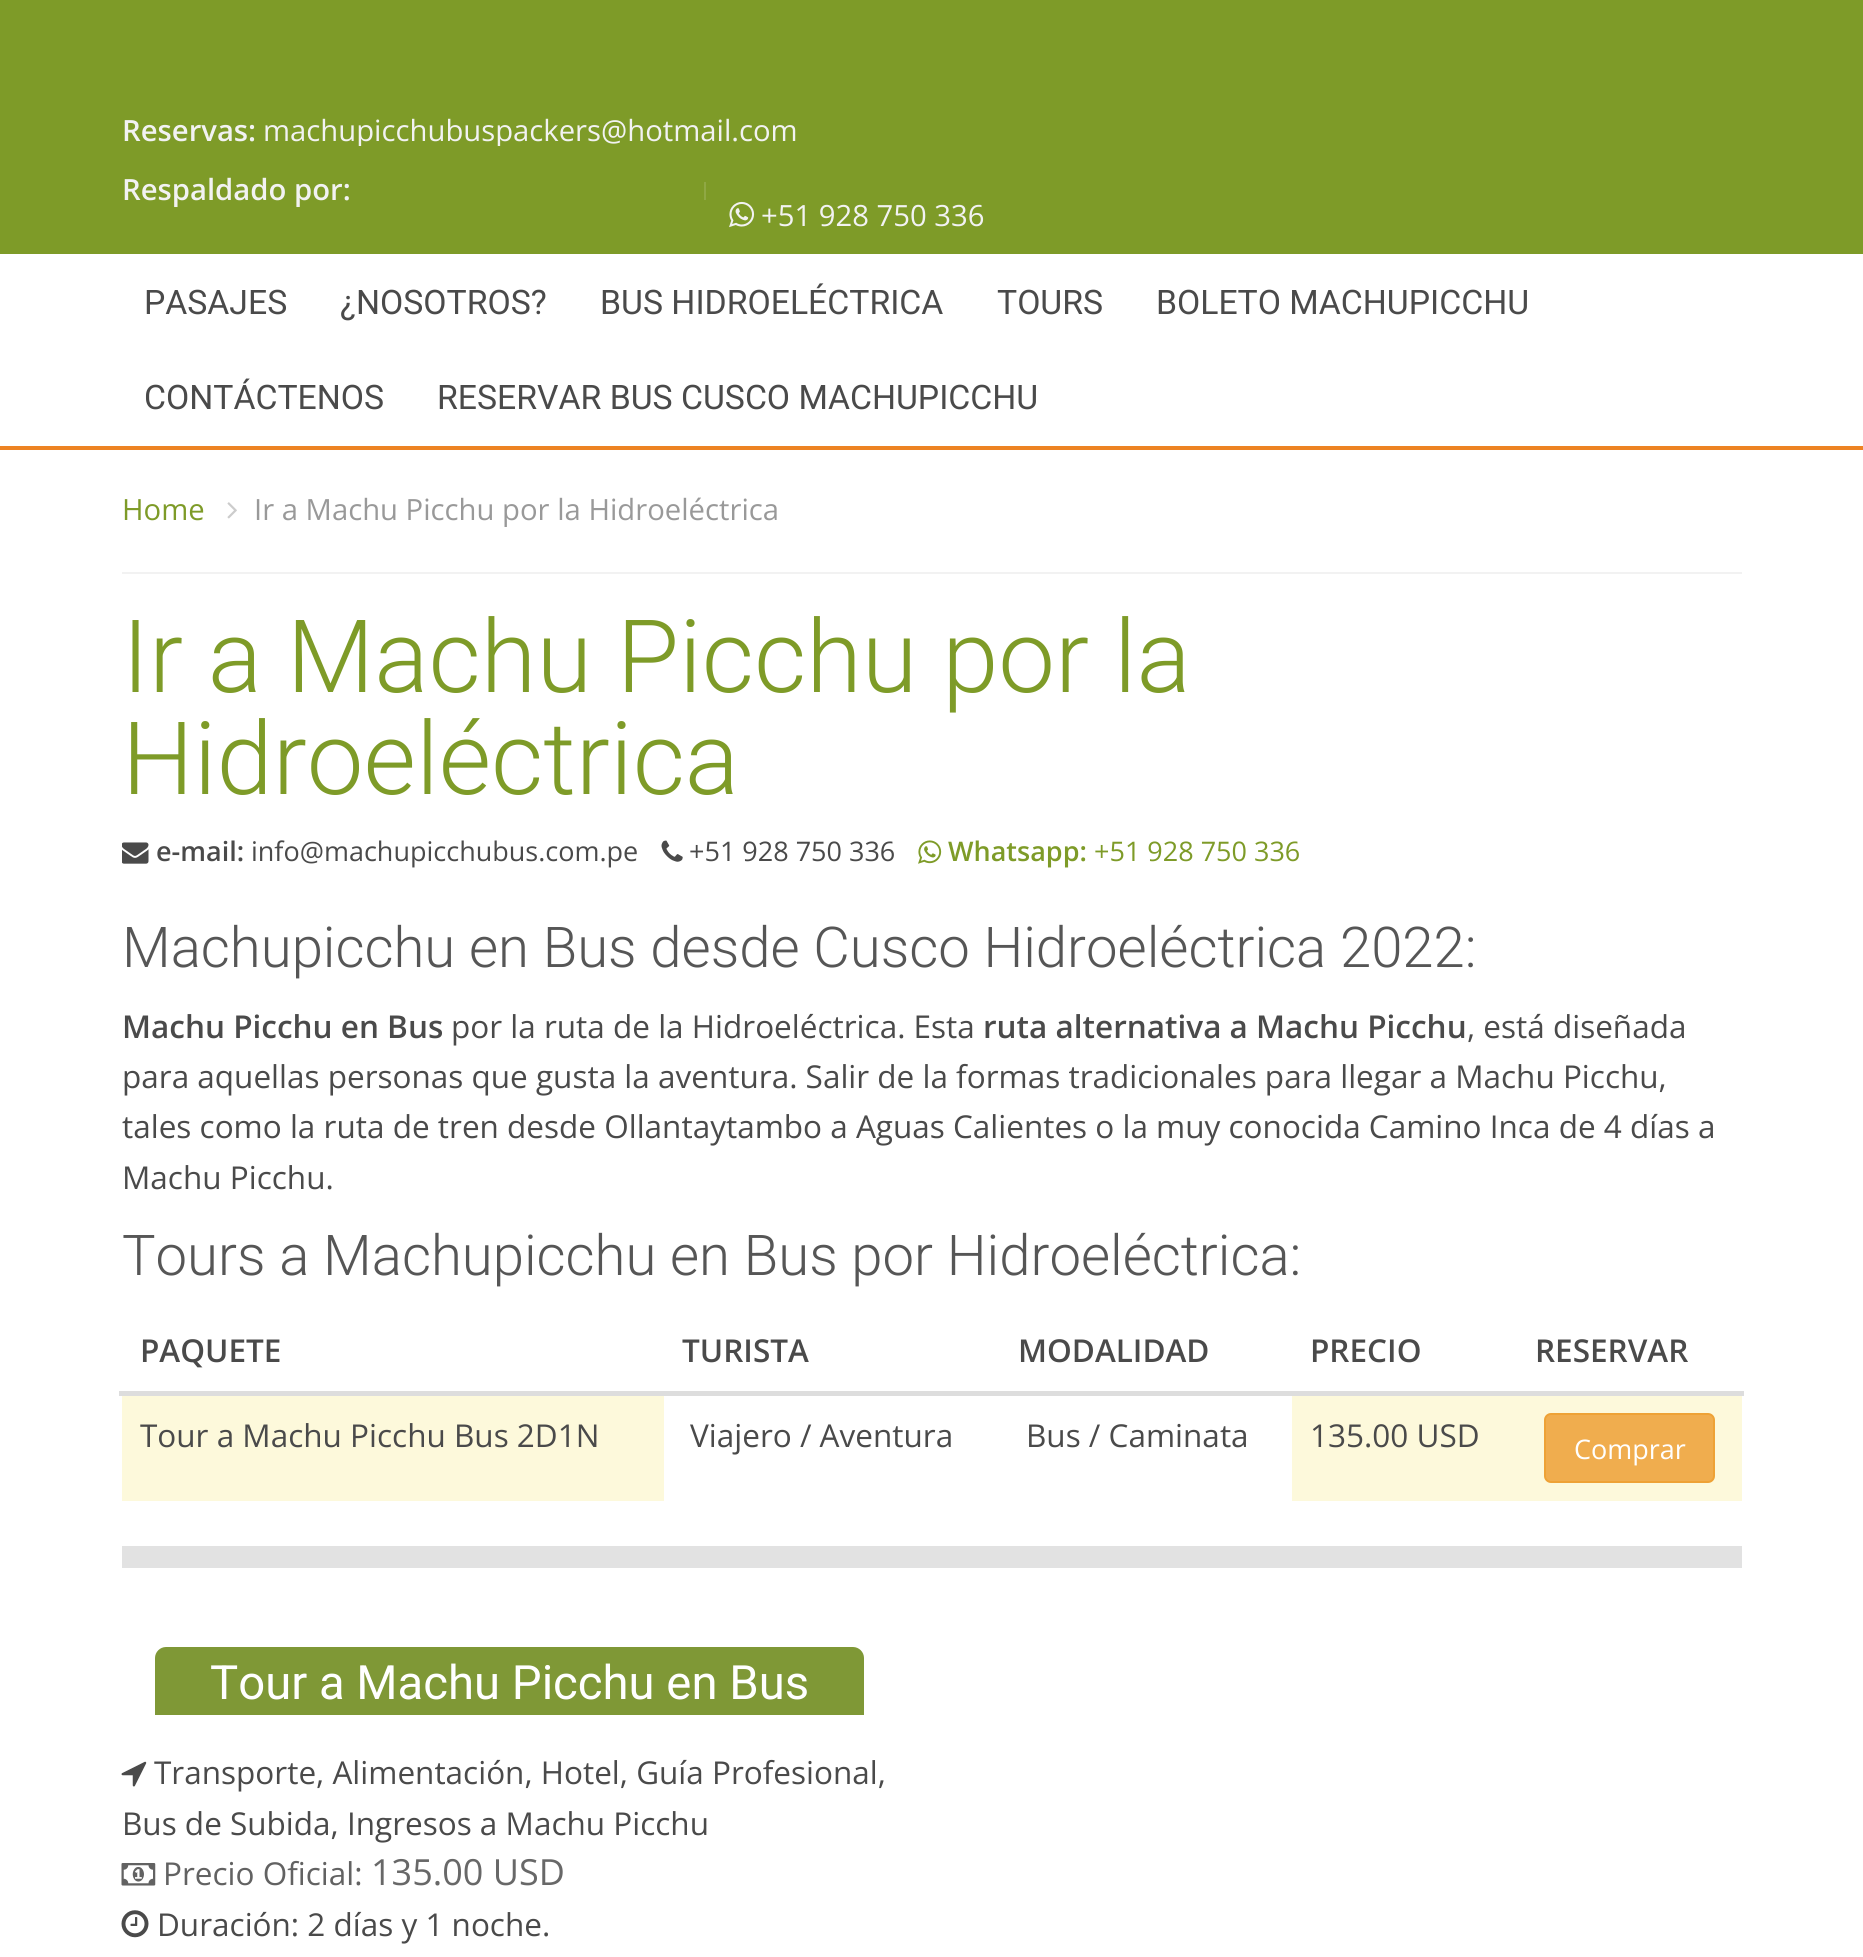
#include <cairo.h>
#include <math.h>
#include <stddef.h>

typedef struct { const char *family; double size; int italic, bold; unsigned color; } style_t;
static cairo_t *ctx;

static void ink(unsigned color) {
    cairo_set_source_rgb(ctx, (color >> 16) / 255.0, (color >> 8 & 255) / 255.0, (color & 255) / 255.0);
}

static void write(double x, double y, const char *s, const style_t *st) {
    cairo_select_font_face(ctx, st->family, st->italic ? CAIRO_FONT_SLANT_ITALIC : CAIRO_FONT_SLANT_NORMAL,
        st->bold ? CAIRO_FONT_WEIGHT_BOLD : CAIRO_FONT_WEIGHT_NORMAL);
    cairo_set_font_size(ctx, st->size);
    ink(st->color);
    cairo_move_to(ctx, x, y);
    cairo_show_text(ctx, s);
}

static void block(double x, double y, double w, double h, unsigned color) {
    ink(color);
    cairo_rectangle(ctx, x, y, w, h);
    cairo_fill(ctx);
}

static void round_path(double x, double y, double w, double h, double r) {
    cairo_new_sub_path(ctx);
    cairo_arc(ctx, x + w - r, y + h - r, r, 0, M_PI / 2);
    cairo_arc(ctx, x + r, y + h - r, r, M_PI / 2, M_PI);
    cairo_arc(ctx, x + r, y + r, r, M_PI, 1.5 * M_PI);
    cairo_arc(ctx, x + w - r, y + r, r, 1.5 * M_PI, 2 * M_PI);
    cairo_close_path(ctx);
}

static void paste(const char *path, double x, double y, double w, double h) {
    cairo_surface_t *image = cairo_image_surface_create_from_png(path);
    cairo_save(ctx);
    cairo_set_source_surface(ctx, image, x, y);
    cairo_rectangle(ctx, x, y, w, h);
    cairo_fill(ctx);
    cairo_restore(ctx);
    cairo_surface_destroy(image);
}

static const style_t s1 = {"Open Sans SemiBold", 29.25, 0, 0, 0xf2f2f2};
static const style_t s2 = {"Open Sans", 29.25, 0, 0, 0xf2f2f2};
static const style_t s3 = {"Roboto", 33.75, 0, 0, 0x4a4a4a};
static const style_t s4 = {"Open Sans", 29.25, 0, 0, 0x7e9b28};
static const style_t s5 = {"Open Sans", 29.25, 0, 0, 0x999999};
static const style_t s6 = {"Roboto Light", 101.25, 0, 0, 0x7e9b28};
static const style_t s7 = {"Open Sans SemiBold", 27, 0, 0, 0x4a4a4a};
static const style_t s8 = {"Open Sans", 27, 0, 0, 0x4a4a4a};
static const style_t s9 = {"Open Sans SemiBold", 27, 0, 0, 0x7e9b28};
static const style_t s10 = {"Open Sans", 27, 0, 0, 0x7e9b28};
static const style_t s11 = {"Roboto Light", 56.25, 0, 0, 0x565656};
static const style_t s12 = {"Open Sans SemiBold", 31.5, 0, 0, 0x4a4a4a};
static const style_t s13 = {"Open Sans", 31.5, 0, 0, 0x4a4a4a};
static const style_t s14 = {"Open Sans", 27, 0, 0, 0xffffff};
static const style_t s15 = {"Roboto", 47.25, 0, 0, 0xffffff};
static const style_t s16 = {"Open Sans", 31.5, 0, 0, 0x626262};
static const style_t s17 = {"Open Sans", 36, 0, 0, 0x686868};

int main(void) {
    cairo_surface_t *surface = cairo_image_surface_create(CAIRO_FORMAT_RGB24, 1863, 1957);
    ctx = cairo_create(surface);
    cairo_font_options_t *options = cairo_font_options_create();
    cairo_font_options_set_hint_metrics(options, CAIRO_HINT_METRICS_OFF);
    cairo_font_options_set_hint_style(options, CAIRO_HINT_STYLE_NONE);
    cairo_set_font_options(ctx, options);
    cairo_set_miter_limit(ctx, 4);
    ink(0xffffff);
    cairo_paint(ctx);
    block(0, 446, 1863, 4, 0xed8323);
    block(0, 0, 1863, 254, 0x7e9b28);
    write(122, 141, "Reservas:", &s1);
    cairo_save(ctx);
    cairo_rectangle(ctx, 122, 83, 1620, 63);
    cairo_clip(ctx);
    write(263, 141, "machupicchubuspackers@hotmail.com", &s2);
    cairo_restore(ctx);
    write(122, 200, "Respaldado por:", &s1);
    block(704, 182, 2, 18, 0x8fa844);
    paste("pic1.png", 729, 201, 26, 27);
    write(761, 226, "+51 928 750 336", &s2);
    write(144, 314, "PASAJES", &s3);
    write(340, 314, "¿NOSOTROS?", &s3);
    write(600, 314, "BUS HIDROELÉCTRICA", &s3);
    write(997, 314, "TOURS", &s3);
    write(1156, 314, "BOLETO MACHUPICCHU", &s3);
    write(144, 409, "CONTÁCTENOS", &s3);
    write(437, 409, "RESERVAR BUS CUSCO MACHUPICCHU", &s3);
    write(122, 520, "Home", &s4);
    paste("pic2.png", 227, 502, 10, 17);
    write(254, 520, "Ir a Machu Picchu por la Hidroeléctrica", &s5);
    block(122, 572, 1620, 2, 0xf2f2f2);
    write(122, 692, "Ir a Machu Picchu por la", &s6);
    write(122, 794, "Hidroeléctrica", &s6);
    paste("pic3.png", 122, 842, 27, 22);
    write(156, 861, "e-mail:", &s7);
    write(251, 861, "info@machupicchubus.com.pe", &s8);
    paste("pic4.png", 661, 840, 22, 22);
    write(689, 861, "+51 928 750 336", &s8);
    paste("pic5.png", 918, 840, 24, 24);
    write(948, 861, "Whatsapp:", &s9);
    write(1094, 861, "+51 928 750 336", &s10);
    write(122, 967, "Machupicchu en Bus desde Cusco Hidroeléctrica 2022:", &s11);
    write(122, 1038, "Machu Picchu en Bus", &s12);
    write(451, 1038, "por la ruta de la Hidroeléctrica. Esta", &s13);
    write(983, 1038, "ruta alternativa a Machu Picchu", &s12);
    write(1467, 1038, ", está diseñada", &s13);
    write(122, 1088, "para aquellas personas que gusta la aventura. Salir de la formas tradicionales para llegar a Machu Picchu,", &s13);
    write(122, 1138, "tales como la ruta de tren desde Ollantaytambo a Aguas Calientes o la muy conocida Camino Inca de 4 días a", &s13);
    write(122, 1189, "Machu Picchu.", &s13);
    write(122, 1275, "Tours a Machupicchu en Bus por Hidroeléctrica:", &s11);
    write(140, 1362, "PAQUETE", &s12);
    write(682, 1362, "TURISTA", &s12);
    write(1018, 1362, "MODALIDAD", &s12);
    write(1310, 1362, "PRECIO", &s12);
    block(119, 1391, 1625, 5, 0xdddddd);
    write(1535, 1362, "RESERVAR", &s12);
    block(122, 1396, 542, 105, 0xfdf9db);
    write(140, 1447, "Tour a Machu Picchu Bus 2D1N", &s13);
    write(690, 1447, "Viajero / Aventura", &s13);
    write(1026, 1447, "Bus / Caminata", &s13);
    block(1292, 1396, 450, 105, 0xfdf9db);
    write(1310, 1447, "135.00 USD", &s13);
    ink(0xf0ad4e);
    round_path(1545, 1414, 169, 68, 6);
    cairo_fill_preserve(ctx);
    ink(0xeea236);
    cairo_stroke(ctx);
    write(1574, 1459, "Comprar", &s14);
    block(122, 1546, 1620, 22, 0xe2e2e2);
    ink(0x7f9836);
    cairo_new_path(ctx);
    cairo_move_to(ctx, 166, 1647);
    cairo_line_to(ctx, 853, 1647);
    cairo_curve_to(ctx, 859, 1647, 864, 1652, 864, 1658);
    cairo_line_to(ctx, 864, 1715);
    cairo_line_to(ctx, 155, 1715);
    cairo_line_to(ctx, 155, 1658);
    cairo_curve_to(ctx, 155, 1652, 160, 1647, 166, 1647);
    cairo_close_path(ctx);
    cairo_fill(ctx);
    write(210, 1699, "Tour a Machu Picchu en Bus", &s15);
    paste("pic6.png", 121, 1761, 26, 26);
    write(154, 1784, "Transporte, Alimentación, Hotel, Guía Profesional,", &s13);
    write(122, 1835, "Bus de Subida, Ingresos a Machu Picchu", &s13);
    paste("pic7.png", 121, 1863, 35, 23);
    write(163, 1885, "Precio Oficial:", &s16);
    write(371, 1885, "135.00 USD", &s17);
    paste("pic8.png", 121, 1910, 28, 28);
    write(157, 1936, "Duración: 2 días y 1 noche.", &s13);
    cairo_surface_write_to_png(surface, "screenshot.png");
    cairo_font_options_destroy(options);
    cairo_destroy(ctx);
    cairo_surface_destroy(surface);
    return 0;
}
